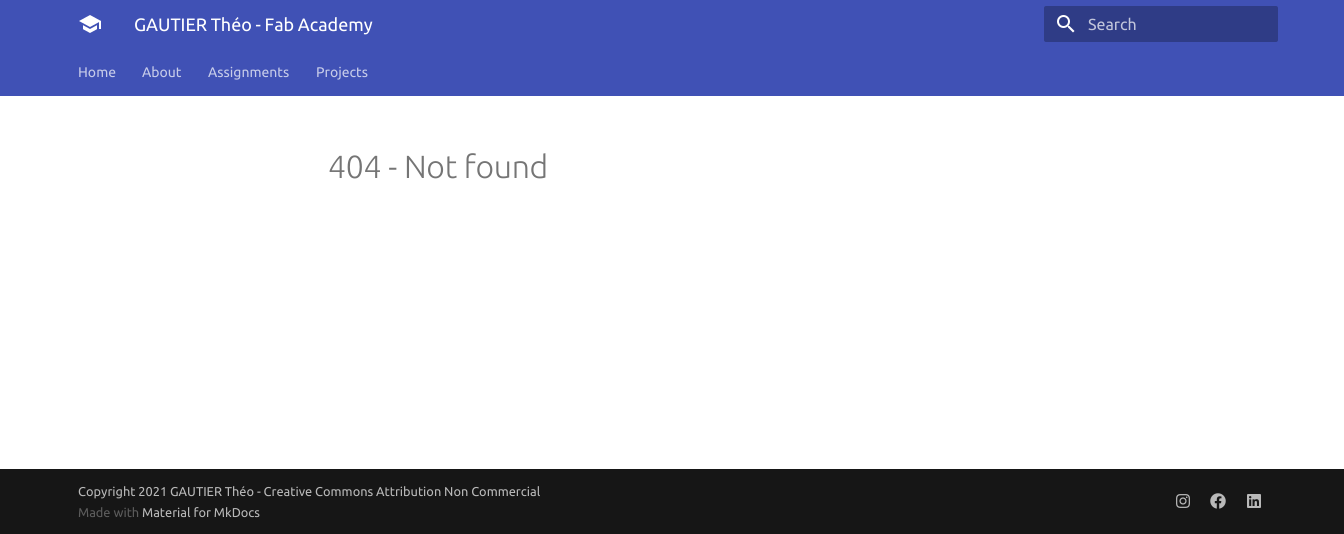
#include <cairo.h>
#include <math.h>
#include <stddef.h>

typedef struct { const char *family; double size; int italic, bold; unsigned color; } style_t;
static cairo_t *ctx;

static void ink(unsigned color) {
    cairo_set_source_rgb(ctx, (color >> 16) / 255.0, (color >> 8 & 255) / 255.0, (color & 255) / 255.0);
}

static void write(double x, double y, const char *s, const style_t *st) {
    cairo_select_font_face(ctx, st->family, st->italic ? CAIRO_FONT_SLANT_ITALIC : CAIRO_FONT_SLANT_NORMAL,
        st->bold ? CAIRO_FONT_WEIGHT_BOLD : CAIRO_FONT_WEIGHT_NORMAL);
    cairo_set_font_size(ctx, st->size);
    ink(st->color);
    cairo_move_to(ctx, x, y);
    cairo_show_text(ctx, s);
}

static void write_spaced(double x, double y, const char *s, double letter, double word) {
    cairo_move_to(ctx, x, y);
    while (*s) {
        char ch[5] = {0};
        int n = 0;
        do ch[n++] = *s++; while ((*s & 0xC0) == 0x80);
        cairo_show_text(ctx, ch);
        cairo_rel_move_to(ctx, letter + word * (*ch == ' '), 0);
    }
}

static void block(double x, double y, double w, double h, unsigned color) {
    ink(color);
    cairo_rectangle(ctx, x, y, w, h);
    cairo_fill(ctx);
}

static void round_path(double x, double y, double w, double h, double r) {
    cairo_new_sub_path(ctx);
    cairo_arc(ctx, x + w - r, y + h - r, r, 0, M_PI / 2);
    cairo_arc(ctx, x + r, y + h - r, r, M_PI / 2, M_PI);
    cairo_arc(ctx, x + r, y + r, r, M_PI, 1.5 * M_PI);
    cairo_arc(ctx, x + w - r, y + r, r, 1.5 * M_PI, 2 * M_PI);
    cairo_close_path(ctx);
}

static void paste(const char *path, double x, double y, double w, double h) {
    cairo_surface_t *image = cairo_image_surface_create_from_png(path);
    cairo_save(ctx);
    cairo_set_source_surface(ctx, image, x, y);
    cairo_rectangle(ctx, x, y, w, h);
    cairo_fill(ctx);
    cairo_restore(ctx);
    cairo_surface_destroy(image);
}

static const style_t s1 = {"Ubuntu", 16, 0, 0, 0xc1c5db};
static const style_t s2 = {"Ubuntu", 14, 0, 0, 0xc6cbe9};
static const style_t s3 = {"Ubuntu", 12.8, 0, 0, 0x5c5c5c};
static const style_t s4 = {"Ubuntu", 12.8, 0, 0, 0xb9b9b9};

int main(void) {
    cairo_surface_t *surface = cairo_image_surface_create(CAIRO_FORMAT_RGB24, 1344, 534);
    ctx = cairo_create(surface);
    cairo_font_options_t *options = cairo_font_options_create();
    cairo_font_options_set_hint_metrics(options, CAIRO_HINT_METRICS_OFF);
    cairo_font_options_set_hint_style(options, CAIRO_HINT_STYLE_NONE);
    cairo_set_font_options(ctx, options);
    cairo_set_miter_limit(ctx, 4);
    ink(0xffffff);
    cairo_paint(ctx);
    block(0, 0, 1344, 96, 0x4051b5);
    paste("pic1.png", 79, 15, 22, 18);
    cairo_select_font_face(ctx, "Ubuntu", CAIRO_FONT_SLANT_NORMAL, CAIRO_FONT_WEIGHT_NORMAL);
    cairo_set_font_size(ctx, 18);
    ink(0xffffff);
    write_spaced(134, 31, "GAUTIER Théo - Fab Academy", 0, -0.5);
    ink(0x2f3c86);
    round_path(1044, 6, 234, 36, 2);
    cairo_fill(ctx);
    paste("pic2.png", 1057, 15, 18, 18);
    write(1088, 30, "Search", &s1);
    write(78, 77, "Home", &s2);
    write(142, 77, "About", &s2);
    write(208, 77, "Assignments", &s2);
    write(316, 77, "Projects", &s2);
    cairo_select_font_face(ctx, "Ubuntu Light", CAIRO_FONT_SLANT_NORMAL, CAIRO_FONT_WEIGHT_NORMAL);
    cairo_set_font_size(ctx, 32);
    ink(0x757575);
    write_spaced(328, 178, "404 - Not found", -0.3, 0);
    block(0, 469, 1344, 65, 0x161616);
    cairo_select_font_face(ctx, "Ubuntu", CAIRO_FONT_SLANT_NORMAL, CAIRO_FONT_WEIGHT_NORMAL);
    cairo_set_font_size(ctx, 12.8);
    ink(0xb9b9b9);
    write_spaced(78, 496, "Copyright 2021 GAUTIER Théo - Creative Commons Attribution Non Commercial", 0, -0.1);
    write(78, 517, "Made with", &s3);
    write(142, 517, "Material for MkDocs", &s4);
    paste("pic3.png", 1176, 494, 14, 14);
    paste("pic4.png", 1210, 493, 16, 16);
    paste("pic5.png", 1247, 494, 14, 14);
    cairo_surface_write_to_png(surface, "screenshot.png");
    cairo_font_options_destroy(options);
    cairo_destroy(ctx);
    cairo_surface_destroy(surface);
    return 0;
}
